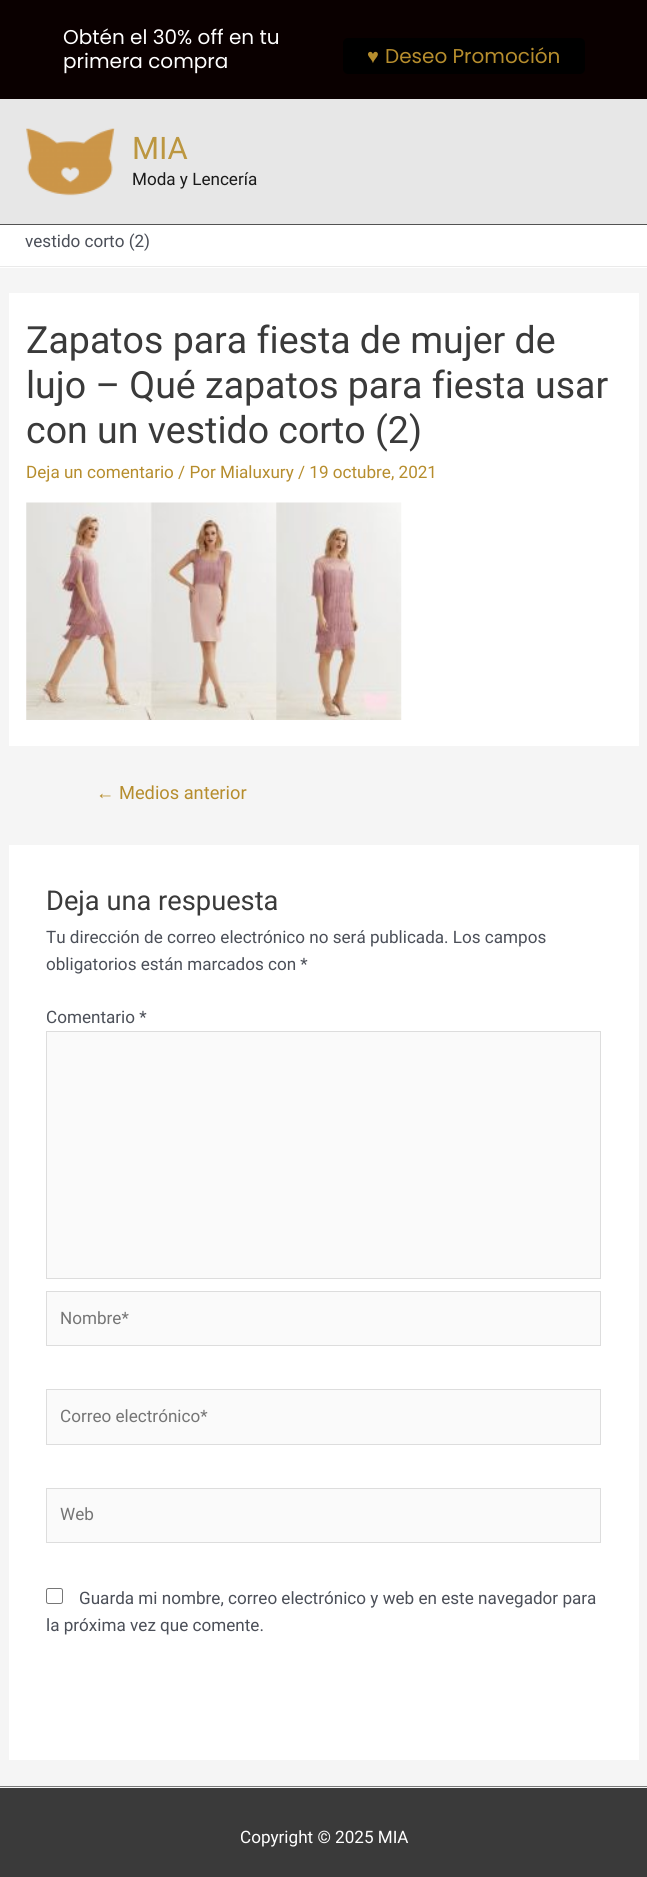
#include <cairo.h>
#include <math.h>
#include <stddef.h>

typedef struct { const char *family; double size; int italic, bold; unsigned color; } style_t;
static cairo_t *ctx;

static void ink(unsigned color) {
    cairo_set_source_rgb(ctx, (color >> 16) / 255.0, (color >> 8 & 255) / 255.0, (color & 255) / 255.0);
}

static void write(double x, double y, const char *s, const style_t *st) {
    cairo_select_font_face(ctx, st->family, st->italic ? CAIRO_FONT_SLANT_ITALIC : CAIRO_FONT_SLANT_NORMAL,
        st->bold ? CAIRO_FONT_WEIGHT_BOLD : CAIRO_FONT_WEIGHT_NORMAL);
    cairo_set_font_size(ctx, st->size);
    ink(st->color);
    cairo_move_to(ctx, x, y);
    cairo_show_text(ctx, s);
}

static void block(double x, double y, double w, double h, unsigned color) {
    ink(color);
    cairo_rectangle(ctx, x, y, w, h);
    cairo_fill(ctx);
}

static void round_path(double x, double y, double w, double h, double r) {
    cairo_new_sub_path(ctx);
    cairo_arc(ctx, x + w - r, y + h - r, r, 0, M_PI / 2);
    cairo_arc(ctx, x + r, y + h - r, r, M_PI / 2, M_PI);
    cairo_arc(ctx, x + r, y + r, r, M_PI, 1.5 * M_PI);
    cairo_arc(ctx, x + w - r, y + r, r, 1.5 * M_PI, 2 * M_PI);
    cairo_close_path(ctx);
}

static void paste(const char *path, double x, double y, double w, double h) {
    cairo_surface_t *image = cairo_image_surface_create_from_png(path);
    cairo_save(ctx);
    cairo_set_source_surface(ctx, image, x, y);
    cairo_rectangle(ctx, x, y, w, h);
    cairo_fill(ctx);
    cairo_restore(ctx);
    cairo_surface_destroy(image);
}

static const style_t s1 = {"Poppins", 20, 0, 0, 0xffffff};
static const style_t s2 = {"Liberation Serif", 20, 0, 0, 0xb68d2d};
static const style_t s3 = {"Poppins", 20, 0, 0, 0xb68d2d};
static const style_t s4 = {"Roboto", 31, 0, 0, 0xbc9741};
static const style_t s5 = {"Roboto", 17.1, 0, 0, 0x1a1a1a};
static const style_t s6 = {"Roboto", 17.1, 0, 0, 0x4b4f58};
static const style_t s7 = {"Roboto", 37.5, 0, 0, 0x3a3a3a};
static const style_t s8 = {"Roboto", 17.1, 0, 0, 0xb68d2d};
static const style_t s9 = {"Liberation Sans", 18.25, 0, 0, 0xb68d2d};
static const style_t s10 = {"Roboto", 18.25, 0, 0, 0xb68d2d};
static const style_t s11 = {"Roboto", 27.25, 0, 0, 0x3a3a3a};
static const style_t s12 = {"Roboto", 17.1, 0, 0, 0x757575};
static const style_t s13 = {"Roboto", 17.1, 0, 0, 0xffffff};

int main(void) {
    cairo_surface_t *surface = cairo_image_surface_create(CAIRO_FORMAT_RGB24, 647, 1877);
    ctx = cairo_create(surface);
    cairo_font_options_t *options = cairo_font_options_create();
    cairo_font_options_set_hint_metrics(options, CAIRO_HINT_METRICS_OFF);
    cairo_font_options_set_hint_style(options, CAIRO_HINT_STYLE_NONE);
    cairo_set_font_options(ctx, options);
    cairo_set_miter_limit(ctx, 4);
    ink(0xf5f5f5);
    cairo_paint(ctx);
    block(0, 0, 647, 99, 0x0a0000);
    write(63, 44, "Obtén el 30% off en tu", &s1);
    write(63, 68, "primera compra", &s1);
    ink(0x000000);
    round_path(343, 38, 242, 36, 5);
    cairo_fill(ctx);
    write(367, 63, "♥", &s2);
    write(385, 63, "Deseo Promoción", &s3);
    block(0, 99, 647, 125, 0xe7e7e7);
    block(0, 224, 647, 1, 0x535353);
    paste("pic1.png", 26, 128, 89, 68);
    write(132, 159, "MIA", &s4);
    write(132, 185, "Moda y Lencería", &s5);
    block(0, 225, 647, 43, 0xffffff);
    block(0, 266, 647, 1, 0xeaeaea);
    write(25, 247, "vestido corto (2)", &s6);
    block(9, 293, 630, 453, 0xffffff);
    write(26, 353, "Zapatos para fiesta de mujer de", &s7);
    write(26, 398, "lujo – Qué zapatos para fiesta usar", &s7);
    write(26, 443, "con un vestido corto (2)", &s7);
    write(26, 478, "Deja un comentario / Por Mialuxury / 19 octubre, 2021", &s8);
    paste("pic2.png", 26, 502, 376, 218);
    write(96, 799, "←", &s9);
    write(119, 799, "Medios anterior", &s10);
    block(9, 845, 630, 915, 0xffffff);
    write(46, 910, "Deja una respuesta", &s11);
    write(46, 943, "Tu dirección de correo electrónico no será publicada. Los campos", &s6);
    write(46, 970, "obligatorios están marcados con *", &s6);
    write(46, 1023, "Comentario *", &s6);
    ink(0xfafafa);
    cairo_rectangle(ctx, 46.5, 1031.5, 554, 247);
    cairo_fill_preserve(ctx);
    ink(0xdddddd);
    cairo_set_line_width(ctx, 1);
    cairo_stroke(ctx);
    ink(0xfafafa);
    cairo_rectangle(ctx, 46.5, 1291.5, 554, 54);
    cairo_fill_preserve(ctx);
    ink(0xdddddd);
    cairo_stroke(ctx);
    write(60, 1324, "Nombre*", &s12);
    ink(0xfafafa);
    cairo_rectangle(ctx, 46.5, 1389.5, 554, 55);
    cairo_fill_preserve(ctx);
    ink(0xdddddd);
    cairo_stroke(ctx);
    write(60, 1422, "Correo electrónico*", &s12);
    ink(0xfafafa);
    cairo_rectangle(ctx, 46.5, 1488.5, 554, 54);
    cairo_fill_preserve(ctx);
    ink(0xdddddd);
    cairo_stroke(ctx);
    write(60, 1520, "Web", &s12);
    round_path(46.5, 1588.5, 16, 15, 2);
    ink(0x767676);
    cairo_stroke(ctx);
    write(79, 1604, "Guarda mi nombre, correo electrónico y web en este navegador para", &s6);
    write(46, 1631, "la próxima vez que comente.", &s6);
    block(0, 1786, 647, 1, 0x7a7a7a);
    block(0, 1788, 647, 89, 0x3a3a3a);
    write(240, 1843, "Copyright © 2025 MIA", &s13);
    cairo_surface_write_to_png(surface, "screenshot.png");
    cairo_font_options_destroy(options);
    cairo_destroy(ctx);
    cairo_surface_destroy(surface);
    return 0;
}
